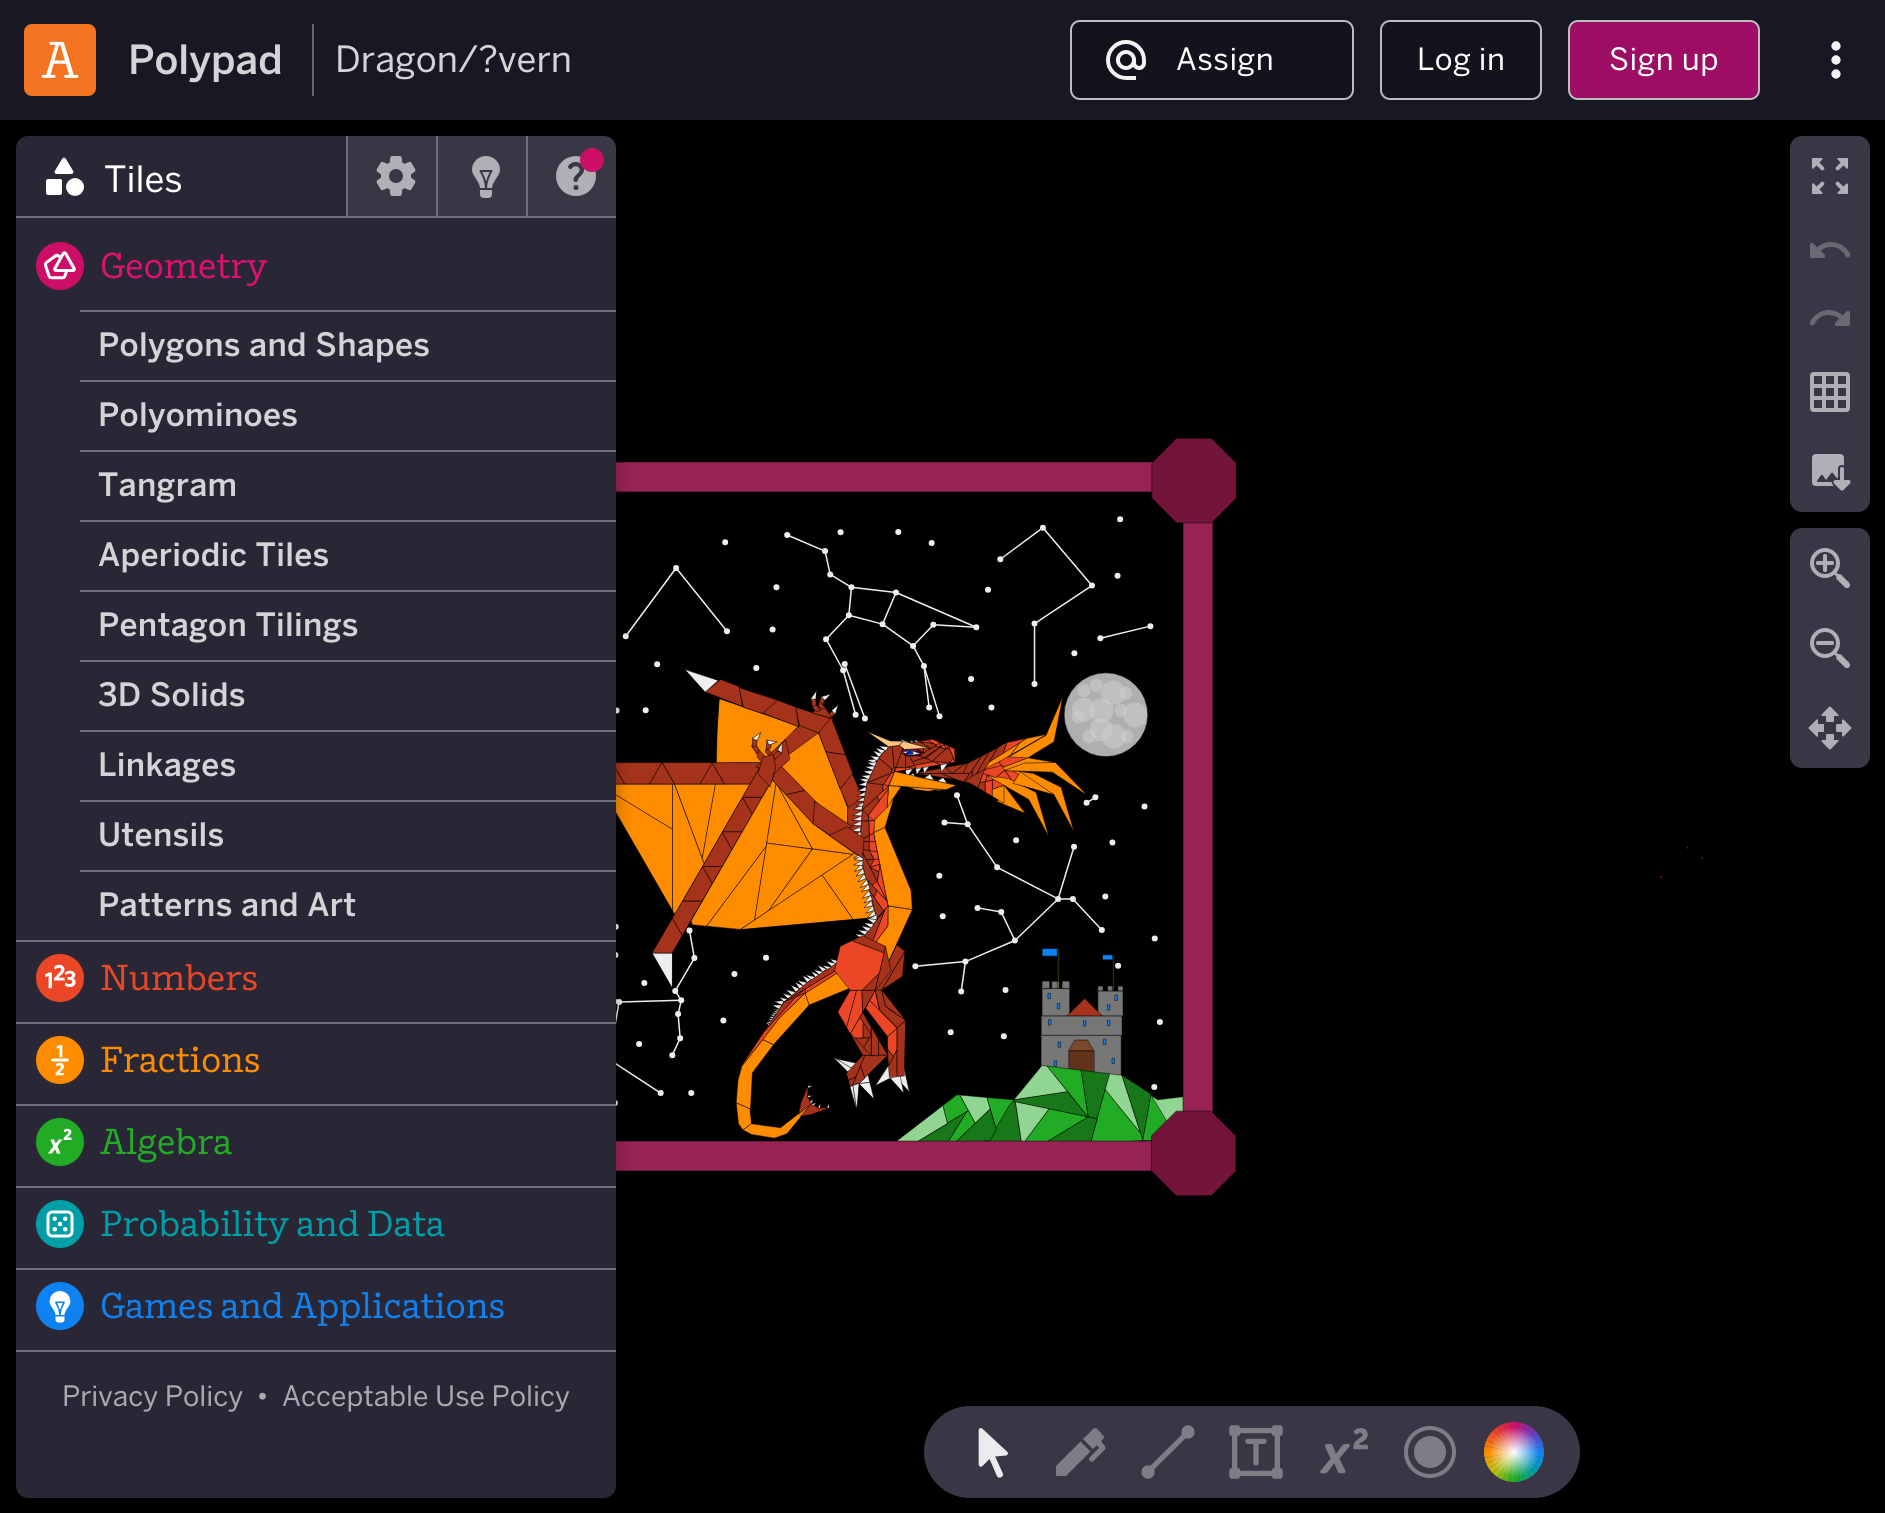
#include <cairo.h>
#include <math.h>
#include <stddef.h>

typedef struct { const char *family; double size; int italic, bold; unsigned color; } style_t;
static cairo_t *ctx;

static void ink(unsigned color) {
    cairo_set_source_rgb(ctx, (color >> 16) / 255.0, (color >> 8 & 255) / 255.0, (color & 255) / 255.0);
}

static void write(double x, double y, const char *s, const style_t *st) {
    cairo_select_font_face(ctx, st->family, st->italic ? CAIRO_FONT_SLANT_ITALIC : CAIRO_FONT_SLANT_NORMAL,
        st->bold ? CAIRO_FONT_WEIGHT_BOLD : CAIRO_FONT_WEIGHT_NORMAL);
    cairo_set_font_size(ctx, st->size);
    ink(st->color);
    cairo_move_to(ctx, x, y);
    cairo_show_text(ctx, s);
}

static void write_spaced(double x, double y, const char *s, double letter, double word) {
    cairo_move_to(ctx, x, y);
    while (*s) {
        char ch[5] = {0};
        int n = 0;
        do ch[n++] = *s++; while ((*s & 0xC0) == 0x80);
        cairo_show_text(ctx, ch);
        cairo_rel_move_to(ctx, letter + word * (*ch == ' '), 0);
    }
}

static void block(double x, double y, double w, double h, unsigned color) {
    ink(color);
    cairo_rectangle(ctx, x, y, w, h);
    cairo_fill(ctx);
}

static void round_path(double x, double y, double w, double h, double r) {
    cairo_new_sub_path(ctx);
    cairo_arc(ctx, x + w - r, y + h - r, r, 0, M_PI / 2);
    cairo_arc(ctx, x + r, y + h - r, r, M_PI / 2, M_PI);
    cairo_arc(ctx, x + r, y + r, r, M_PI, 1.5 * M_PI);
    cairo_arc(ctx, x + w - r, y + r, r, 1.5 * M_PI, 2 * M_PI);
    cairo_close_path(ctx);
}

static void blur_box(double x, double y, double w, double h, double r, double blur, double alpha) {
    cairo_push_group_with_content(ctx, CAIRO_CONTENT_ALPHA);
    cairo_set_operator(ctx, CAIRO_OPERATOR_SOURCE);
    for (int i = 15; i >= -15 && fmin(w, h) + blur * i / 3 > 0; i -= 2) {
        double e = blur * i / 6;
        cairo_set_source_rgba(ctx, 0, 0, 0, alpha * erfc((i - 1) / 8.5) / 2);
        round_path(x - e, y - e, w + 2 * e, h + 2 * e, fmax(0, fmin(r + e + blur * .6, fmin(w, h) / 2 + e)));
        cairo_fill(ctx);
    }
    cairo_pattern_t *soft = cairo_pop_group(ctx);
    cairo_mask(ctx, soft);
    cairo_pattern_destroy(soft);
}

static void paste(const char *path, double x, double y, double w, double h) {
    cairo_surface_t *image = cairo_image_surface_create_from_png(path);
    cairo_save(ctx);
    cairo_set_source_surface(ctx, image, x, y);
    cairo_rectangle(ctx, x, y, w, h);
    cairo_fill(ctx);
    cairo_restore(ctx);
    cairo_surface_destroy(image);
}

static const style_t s1 = {"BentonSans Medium", 40, 0, 0, 0xd4d4d7};
static const style_t s2 = {"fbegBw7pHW", 36, 0, 0, 0xd4d4d7};
static const style_t s3 = {"fbegBw7pHW", 36, 0, 0, 0xffffff};
static const style_t s4 = {"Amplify", 36, 0, 0, 0xe00f70};
static const style_t s5 = {"Amplify", 36, 0, 0, 0xeb4726};
static const style_t s6 = {"Amplify", 36, 0, 0, 0xfd8c00};
static const style_t s7 = {"Amplify", 36, 0, 0, 0x22ab24};
static const style_t s8 = {"Amplify", 36, 0, 0, 0x009ea6};
static const style_t s9 = {"Amplify", 36, 0, 0, 0x0f82f2};
static const style_t s10 = {"fbegBw7pHW", 28, 0, 0, 0xa9a9ae};

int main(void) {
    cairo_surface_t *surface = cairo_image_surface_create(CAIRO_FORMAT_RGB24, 1885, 1513);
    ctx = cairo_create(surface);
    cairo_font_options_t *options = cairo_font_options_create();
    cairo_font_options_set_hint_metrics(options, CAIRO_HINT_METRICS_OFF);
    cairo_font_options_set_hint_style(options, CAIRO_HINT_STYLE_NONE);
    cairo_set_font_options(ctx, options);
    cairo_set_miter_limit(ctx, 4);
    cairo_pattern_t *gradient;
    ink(0x000000);
    cairo_paint(ctx);
    paste("pic14.png", 616, 438, 1087, 758);
    blur_box(16, 142, 600, 1362, 12, 8, 0.3);
    block(0, 0, 1885, 120, 0x181824);
    paste("pic1.png", 24, 24, 72, 72);
    write(128, 74, "Polypad", &s1);
    block(312, 24, 2, 72, 0x666666);
    write(335, 72, "Dragon/?vern", &s2);
    ink(0x13131d);
    round_path(1071, 21, 282, 78, 9);
    cairo_fill_preserve(ctx);
    ink(0xbdbdbd);
    cairo_stroke(ctx);
    paste("pic2.png", 1106, 40, 40, 40);
    cairo_set_font_size(ctx, 30.5);
    ink(0xffffff);
    write_spaced(1176, 70, "Assign", 0.5, 0);
    ink(0x13131d);
    round_path(1381, 21, 160, 78, 9);
    cairo_fill_preserve(ctx);
    ink(0xbdbdbd);
    cairo_stroke(ctx);
    ink(0xffffff);
    write_spaced(1417, 70, "Log in", 0.5, 0);
    ink(0x9c0d63);
    round_path(1569, 21, 190, 78, 9);
    cairo_fill_preserve(ctx);
    ink(0xbdbdbd);
    cairo_stroke(ctx);
    ink(0xffffff);
    write_spaced(1609, 70, "Sign up", 0.5, 0);
    paste("pic3.png", 1831, 41, 10, 38);
    ink(0x292735);
    cairo_new_path(ctx);
    cairo_move_to(ctx, 28, 136);
    cairo_line_to(ctx, 348, 136);
    cairo_line_to(ctx, 348, 216);
    cairo_line_to(ctx, 16, 216);
    cairo_line_to(ctx, 16, 148);
    cairo_curve_to(ctx, 16, 141.5, 21.5, 136, 28, 136);
    cairo_close_path(ctx);
    cairo_fill(ctx);
    block(346, 136, 2, 80, 0x716e79);
    paste("pic4.png", 46, 157, 38, 39);
    write(104, 192, "Tiles", &s3);
    block(348, 136, 88, 80, 0x3a3645);
    block(436, 136, 2, 80, 0x716e79);
    paste("pic5.png", 376, 156, 40, 40);
    block(438, 136, 88, 80, 0x3a3645);
    block(526, 136, 2, 80, 0x716e79);
    paste("pic6.png", 472, 156, 28, 42);
    ink(0x3a3645);
    cairo_new_path(ctx);
    cairo_move_to(ctx, 528, 136);
    cairo_line_to(ctx, 604, 136);
    cairo_curve_to(ctx, 610.5, 136, 616, 141.5, 616, 148);
    cairo_line_to(ctx, 616, 216);
    cairo_line_to(ctx, 528, 216);
    cairo_close_path(ctx);
    cairo_fill(ctx);
    paste("pic7.png", 556, 156, 40, 40);
    ink(0xcd0e66);
    cairo_arc(ctx, 592, 160, 12, 0, 2 * M_PI);
    cairo_fill(ctx);
    ink(0x292735);
    cairo_new_path(ctx);
    cairo_move_to(ctx, 16, 216);
    cairo_line_to(ctx, 616, 216);
    cairo_line_to(ctx, 616, 1486);
    cairo_curve_to(ctx, 616, 1492.5, 610.5, 1498, 604, 1498);
    cairo_line_to(ctx, 28, 1498);
    cairo_curve_to(ctx, 21.5, 1498, 16, 1492.5, 16, 1486);
    cairo_close_path(ctx);
    cairo_fill(ctx);
    block(16, 216, 600, 2, 0x716e79);
    ink(0xcd0e66);
    cairo_arc(ctx, 60, 266, 24, 0, 2 * M_PI);
    cairo_fill(ctx);
    paste("pic8.png", 43, 251, 33, 29);
    write(100, 278, "Geometry", &s4);
    block(80, 310, 536, 2, 0x716e79);
    cairo_select_font_face(ctx, "BentonSans Medium", CAIRO_FONT_SLANT_NORMAL, CAIRO_FONT_WEIGHT_NORMAL);
    cairo_set_font_size(ctx, 32);
    ink(0xd4d4d7);
    write_spaced(98, 356, "Polygons and Shapes", 0.3, 0);
    block(80, 380, 536, 2, 0x716e79);
    ink(0xd4d4d7);
    write_spaced(98, 426, "Polyominoes", 0.3, 0);
    block(80, 450, 536, 2, 0x716e79);
    ink(0xd4d4d7);
    write_spaced(98, 496, "Tangram", 0.3, 0);
    block(80, 520, 536, 2, 0x716e79);
    ink(0xd4d4d7);
    write_spaced(98, 566, "Aperiodic Tiles", 0.3, 0);
    block(80, 590, 536, 2, 0x716e79);
    ink(0xd4d4d7);
    write_spaced(98, 636, "Pentagon Tilings", 0.3, 0);
    block(80, 660, 536, 2, 0x716e79);
    ink(0xd4d4d7);
    write_spaced(98, 706, "3D Solids", 0.3, 0);
    block(80, 730, 536, 2, 0x716e79);
    ink(0xd4d4d7);
    write_spaced(98, 776, "Linkages", 0.3, 0);
    block(80, 800, 536, 2, 0x716e79);
    ink(0xd4d4d7);
    write_spaced(98, 846, "Utensils", 0.3, 0);
    block(80, 870, 536, 2, 0x716e79);
    ink(0xd4d4d7);
    write_spaced(98, 916, "Patterns and Art", 0.3, 0);
    block(16, 940, 600, 2, 0x716e79);
    ink(0xeb4726);
    cairo_new_path(ctx);
    cairo_arc(ctx, 60, 978, 24, 0, 2 * M_PI);
    cairo_fill(ctx);
    paste("pic9.png", 45, 964, 31, 25);
    write(100, 990, "Numbers", &s5);
    block(16, 1022, 600, 2, 0x716e79);
    ink(0xfd8c00);
    cairo_new_path(ctx);
    cairo_arc(ctx, 60, 1060, 24, 0, 2 * M_PI);
    cairo_fill(ctx);
    paste("pic10.png", 51, 1045, 18, 31);
    write(100, 1072, "Fractions", &s6);
    block(16, 1104, 600, 2, 0x716e79);
    ink(0x22ab24);
    cairo_new_path(ctx);
    cairo_arc(ctx, 60, 1142, 24, 0, 2 * M_PI);
    cairo_fill(ctx);
    paste("pic11.png", 48, 1128, 24, 26);
    write(100, 1154, "Algebra", &s7);
    block(16, 1186, 600, 2, 0x716e79);
    ink(0x009ea6);
    cairo_new_path(ctx);
    cairo_arc(ctx, 60, 1224, 24, 0, 2 * M_PI);
    cairo_fill(ctx);
    paste("pic12.png", 46, 1210, 28, 28);
    write(100, 1236, "Probability and Data", &s8);
    block(16, 1268, 600, 2, 0x716e79);
    ink(0x0f82f2);
    cairo_new_path(ctx);
    cairo_arc(ctx, 60, 1306, 24, 0, 2 * M_PI);
    cairo_fill(ctx);
    paste("pic13.png", 49, 1291, 22, 32);
    write(100, 1318, "Games and Applications", &s9);
    block(16, 1350, 600, 2, 0x716e79);
    write(62, 1406, "Privacy Policy", &s10);
    write(256, 1406, "•", &s10);
    write(282, 1406, "Acceptable Use Policy", &s10);
    ink(0x3a3645);
    round_path(1790, 136, 80, 376, 12);
    cairo_fill(ctx);
    paste("pic15.png", 1812, 158, 36, 36);
    paste("pic16.png", 1810, 242, 41, 16);
    paste("pic17.png", 1809, 310, 41, 16);
    paste("pic18.png", 1810, 372, 40, 40);
    paste("pic19.png", 1812, 454, 39, 37);
    round_path(1790, 528, 80, 240, 12);
    cairo_fill(ctx);
    paste("pic20.png", 1810, 548, 40, 41);
    paste("pic21.png", 1810, 628, 40, 41);
    paste("pic22.png", 1808, 706, 44, 44);
    round_path(924, 1406, 656, 92, 46);
    cairo_fill(ctx);
    paste("pic23.png", 978, 1428, 30, 50);
    paste("pic24.png", 1056, 1428, 50, 48);
    paste("pic25.png", 1141, 1425, 54, 54);
    paste("pic26.png", 1229, 1425, 54, 54);
    paste("pic27.png", 1320, 1428, 48, 46);
    ink(0x7f7c86);
    cairo_arc(ctx, 1430, 1452, 16, 0, 2 * M_PI);
    cairo_fill(ctx);
    cairo_arc(ctx, 1430, 1452, 24, 0, 2 * M_PI);
    cairo_set_line_width(ctx, 4);
    cairo_stroke(ctx);
    paste("pic28.png", 1484, 1422, 60, 60);
    gradient = cairo_pattern_create_radial(1514, 1452, 0, 1514, 1452, 42);
    cairo_pattern_add_color_stop_rgba(gradient, 0, 1, 1, 1, 1);
    cairo_pattern_add_color_stop_rgba(gradient, 0.6, 1, 1, 1, 0);
    cairo_set_source(ctx, gradient);
    cairo_pattern_destroy(gradient);
    cairo_rectangle(ctx, 1489, 1427, 50, 50);
    cairo_fill(ctx);
    cairo_surface_write_to_png(surface, "screenshot.png");
    cairo_font_options_destroy(options);
    cairo_destroy(ctx);
    cairo_surface_destroy(surface);
    return 0;
}
